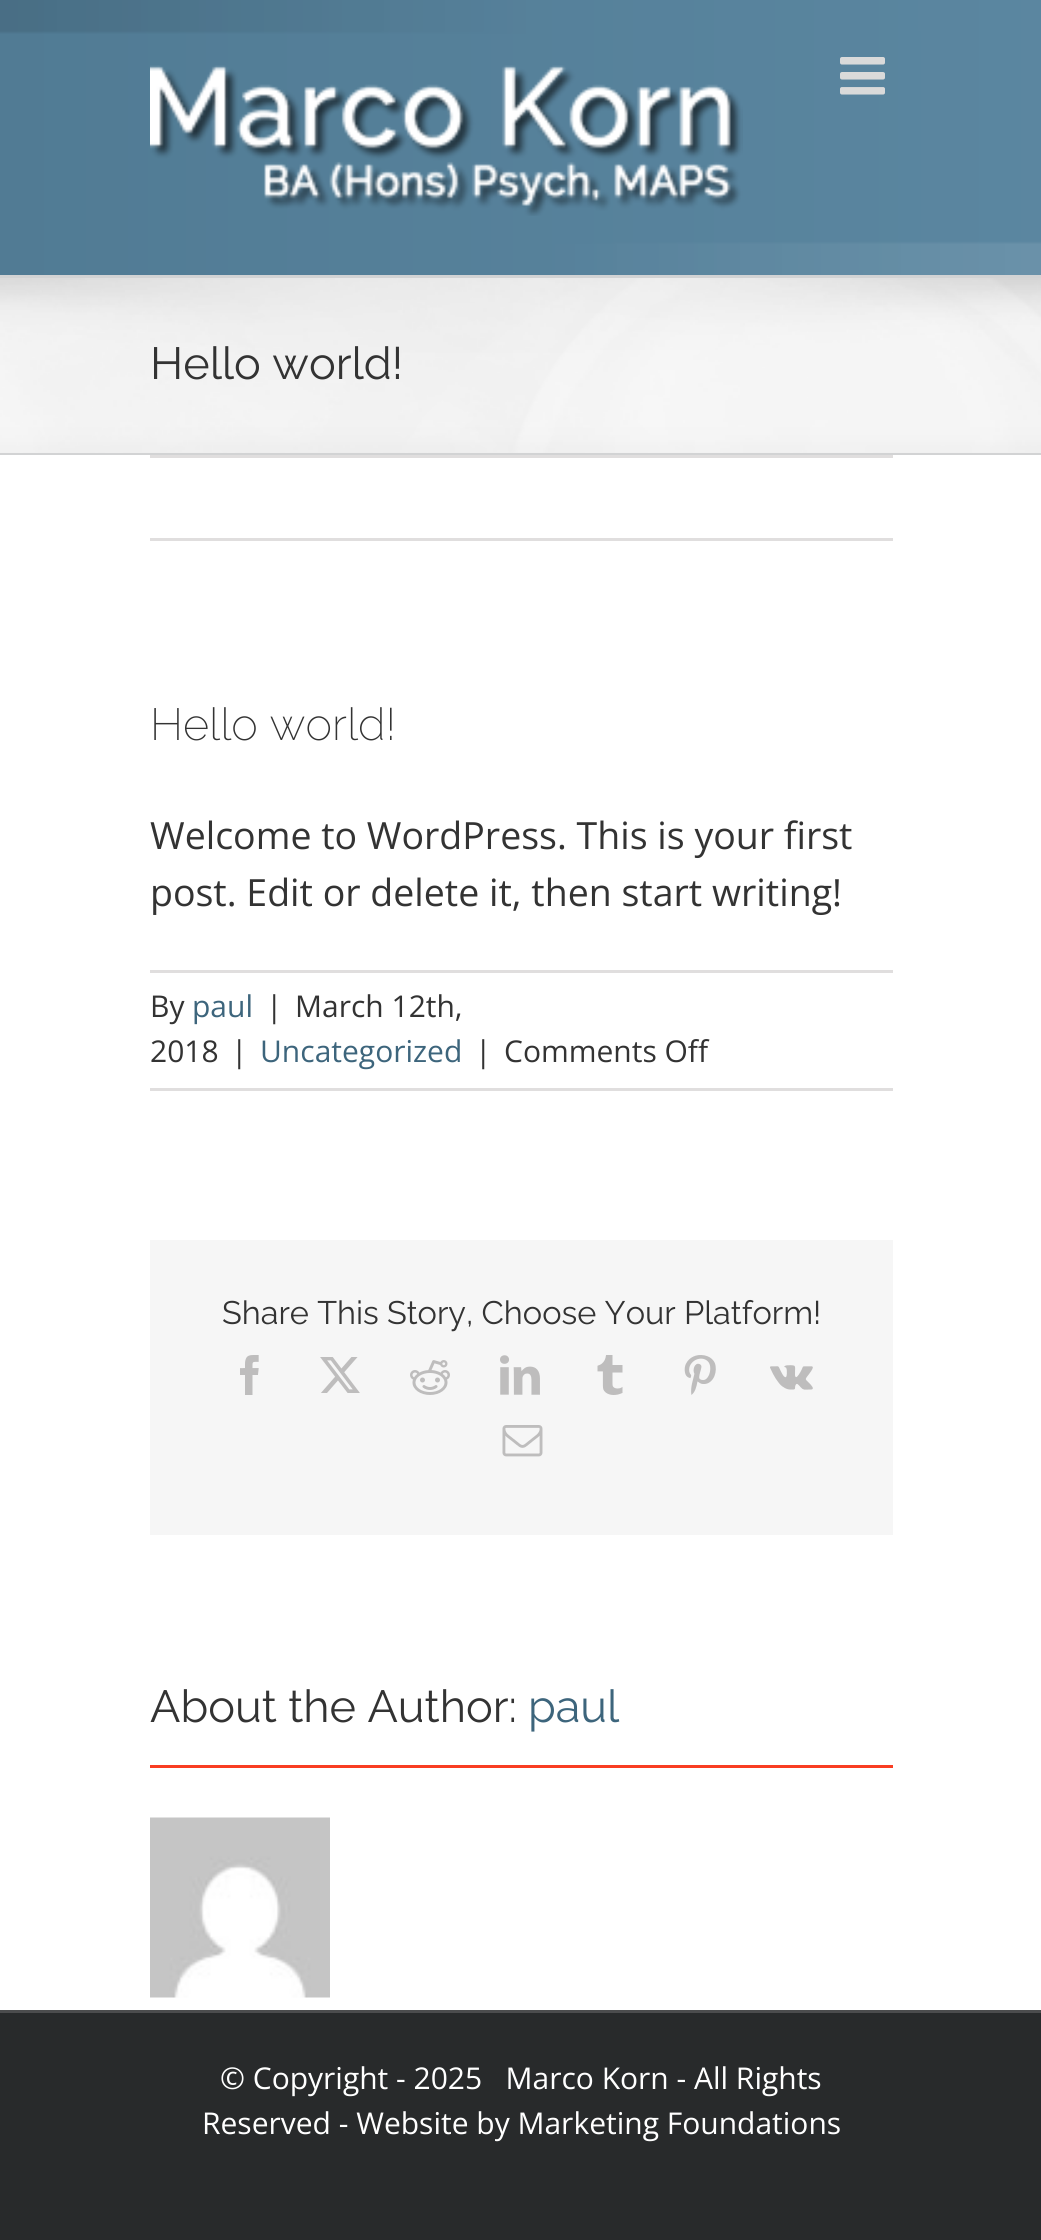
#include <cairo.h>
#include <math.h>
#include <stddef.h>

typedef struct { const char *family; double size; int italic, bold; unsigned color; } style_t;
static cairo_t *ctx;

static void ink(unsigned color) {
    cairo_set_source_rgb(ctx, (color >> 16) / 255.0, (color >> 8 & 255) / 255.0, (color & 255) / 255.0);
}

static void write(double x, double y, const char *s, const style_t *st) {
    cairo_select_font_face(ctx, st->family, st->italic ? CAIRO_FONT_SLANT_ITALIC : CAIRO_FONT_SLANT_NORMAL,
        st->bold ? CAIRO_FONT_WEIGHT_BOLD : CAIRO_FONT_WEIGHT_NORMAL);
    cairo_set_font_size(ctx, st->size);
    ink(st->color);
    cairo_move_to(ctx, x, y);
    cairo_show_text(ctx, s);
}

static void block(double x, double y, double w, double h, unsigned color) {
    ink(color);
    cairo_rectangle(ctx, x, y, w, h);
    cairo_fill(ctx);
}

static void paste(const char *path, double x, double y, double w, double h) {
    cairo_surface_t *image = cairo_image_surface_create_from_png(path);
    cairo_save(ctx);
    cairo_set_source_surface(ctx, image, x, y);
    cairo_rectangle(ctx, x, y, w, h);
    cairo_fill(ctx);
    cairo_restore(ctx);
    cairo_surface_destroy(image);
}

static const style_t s1 = {"Raleway", 45, 0, 0, 0x333333};
static const style_t s2 = {"Raleway ExtraLight", 45, 0, 0, 0x333333};
static const style_t s3 = {"Open Sans", 37.5, 0, 0, 0x333333};
static const style_t s4 = {"Open Sans", 30, 0, 0, 0x333333};
static const style_t s5 = {"Open Sans", 30, 0, 0, 0x3d657c};
static const style_t s6 = {"Raleway", 32.5, 0, 0, 0x333333};
static const style_t s7 = {"Raleway", 45, 0, 0, 0x3d657c};
static const style_t s8 = {"Open Sans", 30, 0, 0, 0xffffff};

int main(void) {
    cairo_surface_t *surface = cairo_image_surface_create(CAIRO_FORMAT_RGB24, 1041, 2240);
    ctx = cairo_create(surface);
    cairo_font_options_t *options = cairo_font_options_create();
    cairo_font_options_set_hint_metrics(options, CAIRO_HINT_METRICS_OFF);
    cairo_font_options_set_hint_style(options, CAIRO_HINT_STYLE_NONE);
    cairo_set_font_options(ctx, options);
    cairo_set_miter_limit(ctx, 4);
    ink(0xf6f6f6);
    cairo_paint(ctx);
    paste("pic1.png", 0, 0, 1041, 275);
    paste("pic2.png", 150, 65, 593, 151);
    paste("pic3.png", 840, 57, 45, 38);
    paste("pic4.png", 0, 278, 1041, 175);
    block(0, 275, 1041, 3, 0xd2d3d4);
    block(0, 453, 1041, 2, 0xd2d3d4);
    write(150, 379, "Hello world!", &s1);
    block(0, 455, 1041, 1555, 0xffffff);
    block(150, 455, 743, 3, 0xe0dede);
    block(150, 538, 743, 3, 0xe0dede);
    write(150, 740, "Hello world!", &s2);
    write(150, 849, "Welcome to WordPress. This is your first", &s3);
    write(150, 906, "post. Edit or delete it, then start writing!", &s3);
    block(150, 970, 743, 3, 0xe0dede);
    block(150, 1088, 743, 3, 0xe0dede);
    write(150, 1017, "By", &s4);
    write(192, 1017, "paul", &s5);
    write(266, 1017, "|", &s4);
    write(295, 1017, "March 12th,", &s4);
    write(150, 1062, "2018", &s4);
    write(231, 1062, "|", &s4);
    write(260, 1062, "Uncategorized", &s5);
    write(475, 1062, "|", &s4);
    write(504, 1062, "Comments Off", &s4);
    block(150, 1240, 743, 295, 0xf6f6f6);
    write(222, 1324, "Share This Story, Choose Your Platform!", &s6);
    paste("pic5.png", 240, 1355, 19, 40);
    paste("pic6.png", 320, 1357, 40, 36);
    paste("pic7.png", 410, 1360, 40, 35);
    paste("pic8.png", 500, 1355, 40, 40);
    paste("pic9.png", 597, 1355, 26, 40);
    paste("pic10.png", 684, 1355, 32, 40);
    paste("pic11.png", 770, 1365, 43, 25);
    paste("pic12.png", 502, 1425, 41, 32);
    block(150, 1765, 743, 3, 0xf93d22);
    write(150, 1722, "About the Author:", &s1);
    write(528, 1722, "paul", &s7);
    paste("pic13.png", 150, 1817, 180, 181);
    block(0, 2013, 1041, 227, 0x282a2b);
    block(0, 2010, 1041, 3, 0x4b4c4d);
    write(220, 2089, "© Copyright - 2025   Marco Korn - All Rights", &s8);
    write(202, 2134, "Reserved - Website by Marketing Foundations", &s8);
    cairo_surface_write_to_png(surface, "screenshot.png");
    cairo_font_options_destroy(options);
    cairo_destroy(ctx);
    cairo_surface_destroy(surface);
    return 0;
}
